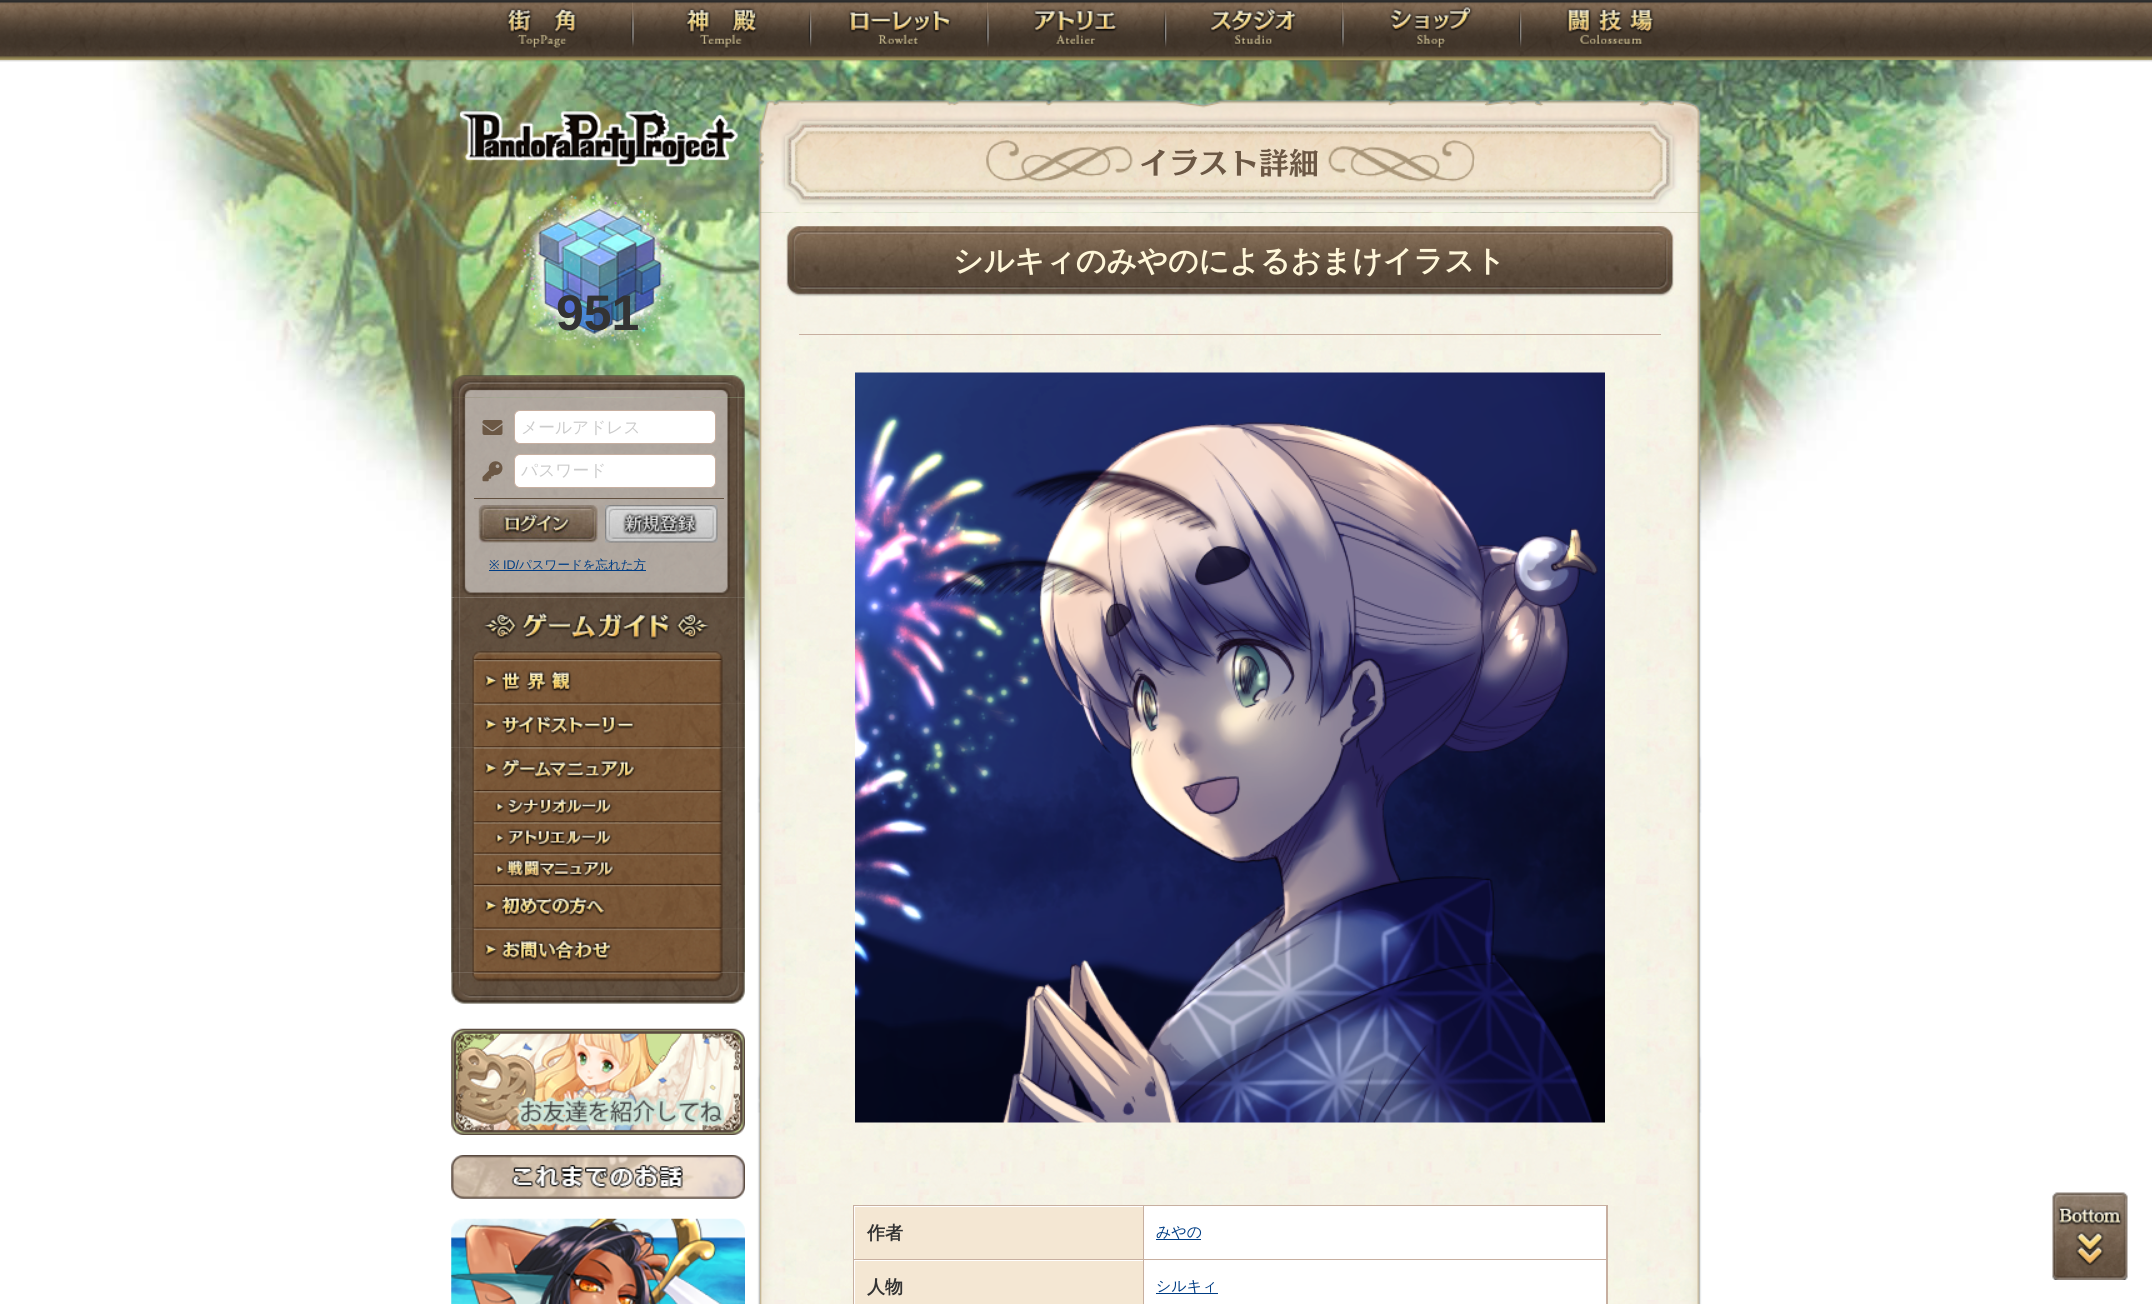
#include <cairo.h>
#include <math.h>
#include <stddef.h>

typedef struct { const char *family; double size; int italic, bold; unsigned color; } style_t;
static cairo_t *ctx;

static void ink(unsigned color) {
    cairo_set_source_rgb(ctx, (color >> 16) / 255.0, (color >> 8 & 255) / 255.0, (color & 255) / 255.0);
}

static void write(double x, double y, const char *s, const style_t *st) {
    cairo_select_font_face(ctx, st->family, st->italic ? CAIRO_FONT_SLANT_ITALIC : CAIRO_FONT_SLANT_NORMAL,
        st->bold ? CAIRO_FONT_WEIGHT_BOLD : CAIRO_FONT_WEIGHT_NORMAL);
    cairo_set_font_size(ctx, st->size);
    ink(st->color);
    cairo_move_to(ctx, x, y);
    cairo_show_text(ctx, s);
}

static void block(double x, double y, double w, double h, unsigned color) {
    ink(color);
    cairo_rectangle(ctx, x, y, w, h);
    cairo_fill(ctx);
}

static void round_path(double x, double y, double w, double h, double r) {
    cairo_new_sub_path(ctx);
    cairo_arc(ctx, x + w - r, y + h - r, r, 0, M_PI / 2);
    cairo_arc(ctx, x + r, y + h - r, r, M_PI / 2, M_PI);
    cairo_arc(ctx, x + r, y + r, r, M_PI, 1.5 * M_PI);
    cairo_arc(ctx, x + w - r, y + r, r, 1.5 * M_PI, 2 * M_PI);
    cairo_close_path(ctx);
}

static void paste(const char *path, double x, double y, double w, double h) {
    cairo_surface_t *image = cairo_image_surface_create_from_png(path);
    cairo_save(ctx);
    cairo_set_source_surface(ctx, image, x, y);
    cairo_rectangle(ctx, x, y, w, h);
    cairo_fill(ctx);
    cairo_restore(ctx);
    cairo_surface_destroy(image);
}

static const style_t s1 = {"Liberation Sans", 50, 0, 1, 0x333333};
static const style_t s2 = {"WenQuanYi Zen Hei Medium", 16.75, 0, 0, 0xcccccc};
static const style_t s3 = {"Noto Sans", 12.5, 0, 0, 0x003d84};
static const style_t s4 = {"Liberation Sans", 12.5, 0, 0, 0x003d84};
static const style_t s5 = {"WenQuanYi Zen Hei Medium", 12.5, 0, 0, 0x003d84};
static const style_t s6 = {"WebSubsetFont", 30, 0, 1, 0x6b5744};
static const style_t s7 = {"WenQuanYi Zen Hei", 30, 0, 1, 0xfff7d9};
static const style_t s8 = {"WenQuanYi Zen Hei", 18, 0, 1, 0x333333};
static const style_t s9 = {"WenQuanYi Zen Hei Medium", 15, 0, 0, 0x003d84};

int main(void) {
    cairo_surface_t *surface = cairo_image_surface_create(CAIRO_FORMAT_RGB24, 2152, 1304);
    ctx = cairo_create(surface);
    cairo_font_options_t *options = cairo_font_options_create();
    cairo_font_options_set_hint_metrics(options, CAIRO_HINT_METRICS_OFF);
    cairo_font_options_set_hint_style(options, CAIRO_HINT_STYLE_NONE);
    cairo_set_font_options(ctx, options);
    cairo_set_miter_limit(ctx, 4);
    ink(0xffffff);
    cairo_paint(ctx);
    paste("pic1.png", 113, 59, 1930, 671);
    paste("pic2.png", 0, 0, 2152, 62);
    paste("pic3.png", 451, 2, 182, 59);
    paste("pic4.png", 452, 2, 181, 59);
    paste("pic5.png", 632, 2, 178, 59);
    paste("pic6.png", 632, 2, 178, 59);
    paste("pic7.png", 810, 2, 178, 59);
    paste("pic8.png", 810, 2, 178, 59);
    paste("pic9.png", 987, 2, 178, 59);
    paste("pic10.png", 987, 2, 178, 59);
    paste("pic11.png", 1165, 2, 178, 59);
    paste("pic12.png", 1165, 2, 178, 59);
    paste("pic13.png", 1342, 2, 178, 59);
    paste("pic14.png", 1342, 2, 178, 59);
    paste("pic15.png", 1520, 59, 181, 2);
    paste("pic16.png", 1520, 2, 181, 59);
    paste("pic17.png", 459, 109, 279, 58);
    paste("pic18.png", 451, 375, 294, 23);
    paste("pic19.png", 451, 397, 294, 201);
    paste("pic20.png", 519, 192, 159, 157);
    write(556, 330, "951", &s1);
    paste("pic21.png", 482, 420, 21, 15);
    ink(0xffffff);
    round_path(514.5, 410.5, 201, 33, 5.5);
    cairo_fill_preserve(ctx);
    ink(0xc7afa0);
    cairo_set_line_width(ctx, 1);
    cairo_stroke(ctx);
    write(521, 433, "メールアドレス", &s2);
    paste("pic22.png", 482, 461, 21, 21);
    ink(0xffffff);
    round_path(514.5, 454.5, 201, 33, 5.5);
    cairo_fill_preserve(ctx);
    ink(0xc7afa0);
    cairo_stroke(ctx);
    write(521, 476, "パスワード", &s2);
    block(474, 498, 250, 1, 0x62503f);
    paste("pic23.png", 478, 505, 120, 38);
    paste("pic24.png", 605, 505, 113, 38);
    paste("pic25.png", 453, 585, 290, 13);
    write(489, 569, "※", &s3);
    block(489, 570, 157, 1, 0x003d84);
    write(503, 569, "ID/", &s4);
    write(519, 569, "パスワードを忘れた方", &s5);
    paste("pic26.png", 451, 972, 294, 32);
    paste("pic27.png", 451, 597, 294, 63);
    paste("pic28.png", 451, 660, 294, 44);
    paste("pic30.png", 451, 703, 294, 45);
    paste("pic29.png", 451, 660, 294, 44);
    paste("pic32.png", 451, 747, 294, 45);
    paste("pic31.png", 451, 703, 294, 45);
    paste("pic34.png", 451, 791, 294, 94);
    paste("pic35.png", 451, 791, 294, 32);
    paste("pic33.png", 451, 747, 294, 45);
    paste("pic37.png", 451, 822, 294, 32);
    paste("pic36.png", 451, 791, 294, 32);
    paste("pic39.png", 451, 853, 294, 32);
    paste("pic38.png", 451, 822, 294, 32);
    paste("pic40.png", 451, 853, 294, 32);
    paste("pic41.png", 451, 885, 294, 44);
    paste("pic43.png", 451, 928, 294, 45);
    paste("pic42.png", 451, 885, 294, 44);
    paste("pic44.png", 451, 928, 294, 45);
    paste("pic45.png", 451, 1028, 294, 107);
    paste("pic46.png", 451, 1155, 294, 44);
    paste("pic47.png", 451, 1218, 294, 86);
    paste("pic51.png", 757, 212, 945, 1092);
    paste("pic48.png", 758, 100, 944, 113);
    paste("pic49.png", 986, 140, 147, 42);
    write(1139, 174, "イラスト詳細", &s6);
    paste("pic50.png", 1327, 140, 148, 42);
    paste("pic52.png", 786, 226, 888, 71);
    write(953, 271, "シルキィのみやのによるおまけイラスト", &s7);
    block(799, 334, 862, 1, 0xc7afa0);
    paste("pic53.png", 855, 372, 750, 751);
    block(853, 1205, 755, 99, 0xc7afa0);
    block(855, 1207, 288, 52, 0xf4e7d3);
    block(854, 1206, 289, 1, 0xffffff);
    block(854, 1206, 1, 53, 0xffffff);
    write(867, 1239, "作者", &s8);
    block(1144, 1206, 462, 53, 0xffffff);
    block(1156, 1239, 45, 1, 0x003d84);
    write(1156, 1237, "みやの", &s9);
    block(855, 1261, 288, 43, 0xf4e7d3);
    block(854, 1260, 289, 1, 0xffffff);
    block(854, 1260, 1, 44, 0xffffff);
    write(867, 1293, "人物", &s8);
    block(1144, 1260, 462, 44, 0xffffff);
    write(1156, 1291, "シルキィ", &s9);
    block(1156, 1293, 62, 1, 0x003d84);
    paste("pic54.png", 2052, 1192, 76, 88);
    cairo_surface_write_to_png(surface, "screenshot.png");
    cairo_font_options_destroy(options);
    cairo_destroy(ctx);
    cairo_surface_destroy(surface);
    return 0;
}
